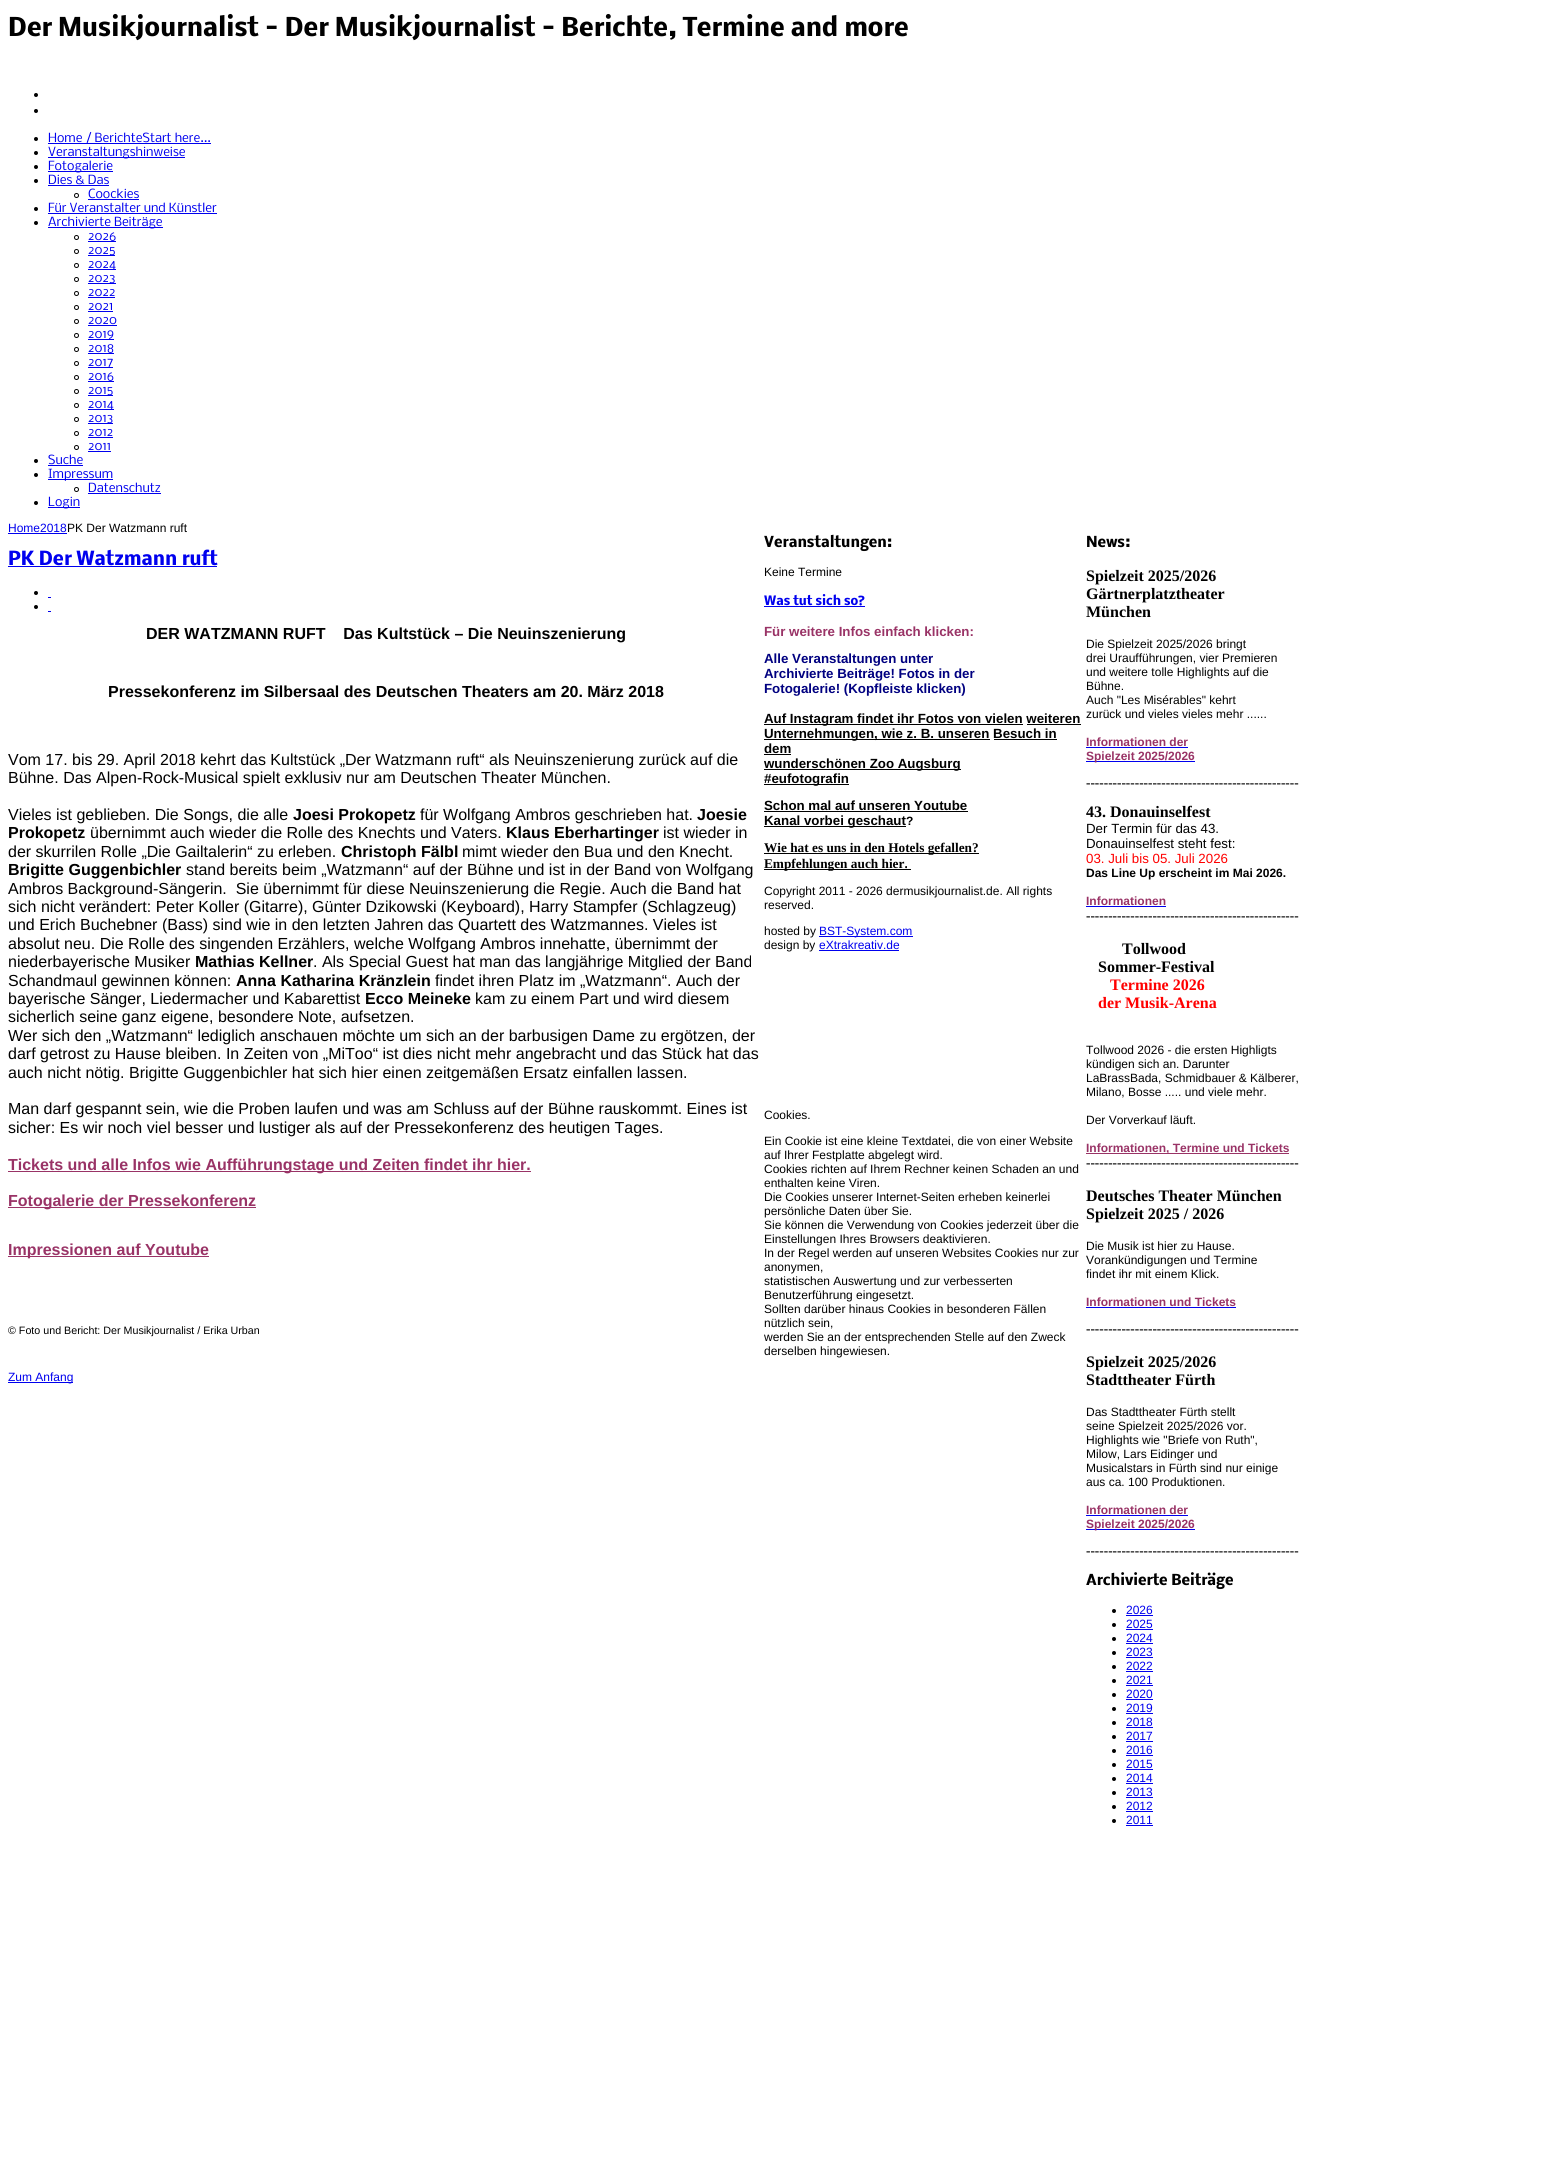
#include <cairo.h>
#include <math.h>
#include <stddef.h>

typedef struct { const char *family; double size; int italic, bold; unsigned color; } style_t;
static cairo_t *ctx;

static void ink(unsigned color) {
    cairo_set_source_rgb(ctx, (color >> 16) / 255.0, (color >> 8 & 255) / 255.0, (color & 255) / 255.0);
}

static void write(double x, double y, const char *s, const style_t *st) {
    cairo_select_font_face(ctx, st->family, st->italic ? CAIRO_FONT_SLANT_ITALIC : CAIRO_FONT_SLANT_NORMAL,
        st->bold ? CAIRO_FONT_WEIGHT_BOLD : CAIRO_FONT_WEIGHT_NORMAL);
    cairo_set_font_size(ctx, st->size);
    ink(st->color);
    cairo_move_to(ctx, x, y);
    cairo_show_text(ctx, s);
}

static void block(double x, double y, double w, double h, unsigned color) {
    ink(color);
    cairo_rectangle(ctx, x, y, w, h);
    cairo_fill(ctx);
}

static const style_t s1 = {"Nobile", 24, 0, 1, 0x000000};
static const style_t s2 = {"Nobile", 12, 0, 0, 0x0000ee};
static const style_t s3 = {"Liberation Sans", 12, 0, 0, 0x0000ee};
static const style_t s4 = {"Liberation Sans", 12, 0, 0, 0x000000};
static const style_t s5 = {"Nobile", 18, 0, 1, 0x0000ee};
static const style_t s6 = {"Liberation Sans", 16, 0, 1, 0x000000};
static const style_t s7 = {"Liberation Sans", 16, 0, 0, 0x000000};
static const style_t s8 = {"Liberation Sans", 16, 0, 1, 0x993366};
static const style_t s9 = {"Liberation Sans", 10.7, 0, 0, 0x000000};
static const style_t s10 = {"Nobile", 14, 0, 1, 0x000000};
static const style_t s11 = {"Nobile", 12, 0, 1, 0x0000ee};
static const style_t s12 = {"Liberation Sans", 13.3, 0, 1, 0x993366};
static const style_t s13 = {"Liberation Sans", 13.3, 0, 1, 0x000080};
static const style_t s14 = {"Liberation Sans", 13.3, 0, 1, 0x000000};
static const style_t s15 = {"Liberation Sans", 12, 0, 1, 0x000000};
static const style_t s16 = {"Liberation Serif", 13.3, 0, 1, 0x000000};
static const style_t s17 = {"Liberation Serif", 16, 0, 1, 0x000000};
static const style_t s18 = {"Liberation Sans", 12, 0, 1, 0x993366};
static const style_t s19 = {"Liberation Sans", 13.3, 0, 0, 0x000000};
static const style_t s20 = {"Liberation Sans", 13.3, 0, 0, 0xff0000};
static const style_t s21 = {"Liberation Serif", 16, 0, 1, 0xff0000};

int main(void) {
    cairo_surface_t *surface = cairo_image_surface_create(CAIRO_FORMAT_RGB24, 1547, 2161);
    ctx = cairo_create(surface);
    cairo_font_options_t *options = cairo_font_options_create();
    cairo_font_options_set_hint_metrics(options, CAIRO_HINT_METRICS_OFF);
    cairo_font_options_set_hint_style(options, CAIRO_HINT_STYLE_NONE);
    cairo_set_font_options(ctx, options);
    cairo_set_miter_limit(ctx, 4);
    ink(0xffffff);
    cairo_paint(ctx);
    write(8, 36, "Der Musikjournalist - Der Musikjournalist - Berichte, Termine and more", &s1);
    cairo_new_path(ctx);
    cairo_arc(ctx, 36, 95, 2, 0, 2 * M_PI);
    cairo_fill(ctx);
    cairo_arc(ctx, 36, 111, 2, 0, 2 * M_PI);
    cairo_fill(ctx);
    cairo_arc(ctx, 36, 139, 2, 0, 2 * M_PI);
    cairo_fill(ctx);
    block(48, 143, 163, 1, 0x0000ee);
    write(48, 142, "Home / BerichteStart here...", &s2);
    ink(0x000000);
    cairo_new_path(ctx);
    cairo_arc(ctx, 36, 153, 2, 0, 2 * M_PI);
    cairo_fill(ctx);
    block(48, 157, 137, 1, 0x0000ee);
    write(48, 156, "Veranstaltungshinweise", &s2);
    ink(0x000000);
    cairo_new_path(ctx);
    cairo_arc(ctx, 36, 167, 2, 0, 2 * M_PI);
    cairo_fill(ctx);
    block(48, 171, 65, 1, 0x0000ee);
    write(48, 170, "Fotogalerie", &s2);
    ink(0x000000);
    cairo_new_path(ctx);
    cairo_arc(ctx, 36, 181, 2, 0, 2 * M_PI);
    cairo_fill(ctx);
    write(48, 184, "Dies & Das", &s2);
    block(48, 185, 61, 1, 0x0000ee);
    cairo_new_path(ctx);
    cairo_arc(ctx, 76.5, 195.5, 2, 0, 2 * M_PI);
    ink(0x000000);
    cairo_set_line_width(ctx, 1);
    cairo_stroke(ctx);
    write(88, 198, "Coockies", &s2);
    block(88, 199, 51, 1, 0x0000ee);
    ink(0x000000);
    cairo_new_path(ctx);
    cairo_arc(ctx, 36, 209, 2, 0, 2 * M_PI);
    cairo_fill(ctx);
    write(48, 212, "Für Veranstalter und Künstler", &s2);
    block(48, 213, 169, 1, 0x0000ee);
    ink(0x000000);
    cairo_new_path(ctx);
    cairo_arc(ctx, 36, 223, 2, 0, 2 * M_PI);
    cairo_fill(ctx);
    block(48, 227, 115, 1, 0x0000ee);
    write(48, 226, "Archivierte Beiträge", &s2);
    cairo_new_path(ctx);
    cairo_arc(ctx, 76.5, 237.5, 2, 0, 2 * M_PI);
    ink(0x000000);
    cairo_stroke(ctx);
    write(88, 240, "2026", &s2);
    block(88, 241, 28, 1, 0x0000ee);
    cairo_new_path(ctx);
    cairo_arc(ctx, 76.5, 251.5, 2, 0, 2 * M_PI);
    ink(0x000000);
    cairo_stroke(ctx);
    block(88, 255, 27, 1, 0x0000ee);
    write(88, 254, "2025", &s2);
    cairo_new_path(ctx);
    cairo_arc(ctx, 76.5, 265.5, 2, 0, 2 * M_PI);
    ink(0x000000);
    cairo_stroke(ctx);
    block(88, 269, 28, 1, 0x0000ee);
    write(88, 268, "2024", &s2);
    cairo_new_path(ctx);
    cairo_arc(ctx, 76.5, 279.5, 2, 0, 2 * M_PI);
    ink(0x000000);
    cairo_stroke(ctx);
    block(88, 283, 28, 1, 0x0000ee);
    write(88, 282, "2023", &s2);
    cairo_new_path(ctx);
    cairo_arc(ctx, 76.5, 293.5, 2, 0, 2 * M_PI);
    ink(0x000000);
    cairo_stroke(ctx);
    write(88, 296, "2022", &s2);
    block(88, 297, 27, 1, 0x0000ee);
    cairo_new_path(ctx);
    cairo_arc(ctx, 76.5, 307.5, 2, 0, 2 * M_PI);
    ink(0x000000);
    cairo_stroke(ctx);
    write(88, 310, "2021", &s2);
    block(88, 311, 25, 1, 0x0000ee);
    cairo_new_path(ctx);
    cairo_arc(ctx, 76.5, 321.5, 2, 0, 2 * M_PI);
    ink(0x000000);
    cairo_stroke(ctx);
    write(88, 324, "2020", &s2);
    block(88, 325, 29, 1, 0x0000ee);
    cairo_new_path(ctx);
    cairo_arc(ctx, 76.5, 335.5, 2, 0, 2 * M_PI);
    ink(0x000000);
    cairo_stroke(ctx);
    write(88, 338, "2019", &s2);
    block(88, 339, 26, 1, 0x0000ee);
    cairo_new_path(ctx);
    cairo_arc(ctx, 76.5, 349.5, 2, 0, 2 * M_PI);
    ink(0x000000);
    cairo_stroke(ctx);
    write(88, 352, "2018", &s2);
    block(88, 353, 26, 1, 0x0000ee);
    cairo_new_path(ctx);
    cairo_arc(ctx, 76.5, 363.5, 2, 0, 2 * M_PI);
    ink(0x000000);
    cairo_stroke(ctx);
    write(88, 366, "2017", &s2);
    block(88, 367, 25, 1, 0x0000ee);
    cairo_new_path(ctx);
    cairo_arc(ctx, 76.5, 377.5, 2, 0, 2 * M_PI);
    ink(0x000000);
    cairo_stroke(ctx);
    write(88, 380, "2016", &s2);
    block(88, 381, 26, 1, 0x0000ee);
    cairo_new_path(ctx);
    cairo_arc(ctx, 76.5, 391.5, 2, 0, 2 * M_PI);
    ink(0x000000);
    cairo_stroke(ctx);
    block(88, 395, 25, 1, 0x0000ee);
    write(88, 394, "2015", &s2);
    cairo_new_path(ctx);
    cairo_arc(ctx, 76.5, 405.5, 2, 0, 2 * M_PI);
    ink(0x000000);
    cairo_stroke(ctx);
    block(88, 409, 26, 1, 0x0000ee);
    write(88, 408, "2014", &s2);
    cairo_new_path(ctx);
    cairo_arc(ctx, 76.5, 419.5, 2, 0, 2 * M_PI);
    ink(0x000000);
    cairo_stroke(ctx);
    block(88, 423, 25, 1, 0x0000ee);
    write(88, 422, "2013", &s2);
    cairo_new_path(ctx);
    cairo_arc(ctx, 76.5, 433.5, 2, 0, 2 * M_PI);
    ink(0x000000);
    cairo_stroke(ctx);
    write(88, 436, "2012", &s2);
    block(88, 437, 25, 1, 0x0000ee);
    cairo_new_path(ctx);
    cairo_arc(ctx, 76.5, 447.5, 2, 0, 2 * M_PI);
    ink(0x000000);
    cairo_stroke(ctx);
    write(88, 450, "2011", &s2);
    block(88, 451, 23, 1, 0x0000ee);
    ink(0x000000);
    cairo_new_path(ctx);
    cairo_arc(ctx, 36, 461, 2, 0, 2 * M_PI);
    cairo_fill(ctx);
    write(48, 464, "Suche", &s2);
    block(48, 465, 35, 1, 0x0000ee);
    ink(0x000000);
    cairo_new_path(ctx);
    cairo_arc(ctx, 36, 475, 2, 0, 2 * M_PI);
    cairo_fill(ctx);
    block(48, 479, 65, 1, 0x0000ee);
    write(48, 478, "Impressum", &s2);
    cairo_new_path(ctx);
    cairo_arc(ctx, 76.5, 489.5, 2, 0, 2 * M_PI);
    ink(0x000000);
    cairo_stroke(ctx);
    write(88, 492, "Datenschutz", &s2);
    block(88, 493, 73, 1, 0x0000ee);
    ink(0x000000);
    cairo_new_path(ctx);
    cairo_arc(ctx, 36, 503, 2, 0, 2 * M_PI);
    cairo_fill(ctx);
    block(48, 507, 32, 1, 0x0000ee);
    write(48, 506, "Login", &s2);
    write(8, 532, "Home2018", &s3);
    block(8, 533, 59, 1, 0x0000ee);
    write(67, 532, "PK Der Watzmann ruft", &s4);
    write(8, 565, "PK Der Watzmann ruft", &s5);
    block(8, 566, 209, 1, 0x0000ee);
    ink(0x000000);
    cairo_new_path(ctx);
    cairo_arc(ctx, 36, 593, 2, 0, 2 * M_PI);
    cairo_fill(ctx);
    block(48, 597, 3, 1, 0x0000ee);
    ink(0x000000);
    cairo_arc(ctx, 36, 607, 2, 0, 2 * M_PI);
    cairo_fill(ctx);
    block(48, 611, 3, 1, 0x0000ee);
    write(146, 639, "DER WATZMANN RUFT    Das Kultstück – Die Neuinszenierung", &s6);
    write(108, 697, "Pressekonferenz im Silbersaal des Deutschen Theaters am 20. März 2018", &s6);
    write(8, 765, "Vom 17. bis 29. April 2018 kehrt das Kultstück „Der Watzmann ruft“ als Neuinszenierung zurück auf die", &s7);
    write(8, 783, "Bühne. Das Alpen-Rock-Musical spielt exklusiv nur am Deutschen Theater München.", &s7);
    write(8, 820, "Vieles ist geblieben. Die Songs, die alle", &s7);
    write(293, 820, "Joesi Prokopetz", &s6);
    write(420, 820, "für Wolfgang Ambros geschrieben hat.", &s7);
    write(697, 820, "Joesie", &s6);
    write(8, 838, "Prokopetz", &s6);
    write(90, 838, "übernimmt auch wieder die Rolle des Knechts und Vaters.", &s7);
    write(506, 838, "Klaus Eberhartinger", &s6);
    write(663, 838, "ist wieder in", &s7);
    write(8, 857, "der skurrilen Rolle „Die Gailtalerin“ zu erleben.", &s7);
    write(341, 857, "Christoph Fälbl", &s6);
    write(462, 857, "mimt wieder den Bua und den Knecht.", &s7);
    write(8, 875, "Brigitte Guggenbichler", &s6);
    write(186, 875, "stand bereits beim „Watzmann“ auf der Bühne und ist in der Band von Wolfgang", &s7);
    write(8, 894, "Ambros Background-Sängerin.  Sie übernimmt für diese Neuinszenierung die Regie. Auch die Band hat", &s7);
    write(8, 912, "sich nicht verändert: Peter Koller (Gitarre), Günter Dzikowski (Keyboard), Harry Stampfer (Schlagzeug)", &s7);
    write(8, 930, "und Erich Buchebner (Bass) sind wie in den letzten Jahren das Quartett des Watzmannes. Vieles ist", &s7);
    write(8, 949, "absolut neu. Die Rolle des singenden Erzählers, welche Wolfgang Ambros innehatte, übernimmt der", &s7);
    write(8, 967, "niederbayerische Musiker", &s7);
    write(195, 967, "Mathias Kellner", &s6);
    write(313, 967, ". Als Special Guest hat man das langjährige Mitglied der Band", &s7);
    write(8, 986, "Schandmaul gewinnen können:", &s7);
    write(236, 986, "Anna Katharina Kränzlein", &s6);
    write(435, 986, "findet ihren Platz im „Watzmann“. Auch der", &s7);
    write(8, 1004, "bayerische Sänger, Liedermacher und Kabarettist", &s7);
    write(365, 1004, "Ecco Meineke", &s6);
    write(475, 1004, "kam zu einem Part und wird diesem", &s7);
    write(8, 1022, "sicherlich seine ganz eigene, besondere Note, aufsetzen.", &s7);
    write(8, 1041, "Wer sich den „Watzmann“ lediglich anschauen möchte um sich an der barbusigen Dame zu ergötzen, der", &s7);
    write(8, 1059, "darf getrost zu Hause bleiben. In Zeiten von „MiToo“ ist dies nicht mehr angebracht und das Stück hat das", &s7);
    write(8, 1078, "auch nicht nötig. Brigitte Guggenbichler hat sich hier einen zeitgemäßen Ersatz einfallen lassen.", &s7);
    write(8, 1114, "Man darf gespannt sein, wie die Proben laufen und was am Schluss auf der Bühne rauskommt. Eines ist", &s7);
    write(8, 1133, "sicher: Es wir noch viel besser und lustiger als auf der Pressekonferenz des heutigen Tages.", &s7);
    block(8, 1171, 523, 1, 0x993366);
    write(8, 1170, "Tickets und alle Infos wie Aufführungstage und Zeiten findet ihr hier.", &s8);
    block(8, 1207, 248, 1, 0x993366);
    write(8, 1206, "Fotogalerie der Pressekonferenz", &s8);
    block(8, 1256, 201, 1, 0x993366);
    write(8, 1255, "Impressionen auf Youtube", &s8);
    write(8, 1334, "© Foto und Bericht: Der Musikjournalist / Erika Urban", &s9);
    write(764, 547, "Veranstaltungen:", &s10);
    write(764, 576, "Keine Termine", &s4);
    write(764, 605, "Was tut sich so?", &s11);
    block(764, 606, 101, 1, 0x0000ee);
    write(764, 636, "Für weitere Infos einfach klicken:", &s12);
    write(764, 663, "Alle Veranstaltungen unter", &s13);
    write(764, 678, "Archivierte Beiträge! Fotos in der", &s13);
    write(764, 693, "Fotogalerie! (Kopfleiste klicken)", &s13);
    block(764, 724, 259, 1, 0x000000);
    write(764, 723, "Auf Instagram findet ihr Fotos von vielen weiteren", &s14);
    block(1027, 724, 54, 1, 0x000000);
    block(764, 739, 226, 1, 0x000000);
    write(764, 738, "Unternehmungen, wie z. B. unseren Besuch in", &s14);
    block(994, 739, 63, 1, 0x000000);
    write(764, 753, "dem", &s14);
    block(764, 754, 27, 1, 0x000000);
    block(764, 769, 197, 1, 0x000000);
    write(764, 768, "wunderschönen Zoo Augsburg", &s14);
    block(764, 784, 85, 1, 0x000000);
    write(764, 783, "#eufotografin", &s14);
    write(764, 810, "Schon mal auf unseren Youtube", &s14);
    block(764, 811, 204, 1, 0x000000);
    block(764, 826, 142, 1, 0x000000);
    write(764, 825, "Kanal vorbei geschaut", &s14);
    write(906, 825, "?", &s15);
    block(764, 853, 215, 1, 0x000000);
    write(764, 852, "Wie hat es uns in den Hotels gefallen?", &s16);
    block(764, 869, 147, 1, 0x000000);
    write(764, 868, "Empfehlungen auch hier.", &s16);
    write(1086, 547, "News:", &s10);
    write(1086, 581, "Spielzeit 2025/2026", &s17);
    write(1086, 599, "Gärtnerplatztheater", &s17);
    write(1086, 617, "München", &s17);
    write(1086, 648, "Die Spielzeit 2025/2026 bringt", &s4);
    write(1086, 662, "drei Uraufführungen, vier Premieren", &s4);
    write(1086, 676, "und weitere tolle Highlights auf die", &s4);
    write(1086, 690, "Bühne.", &s4);
    write(1086, 704, "Auch \"Les Misérables\" kehrt", &s4);
    write(1086, 718, "zurück und vieles vieles mehr ......", &s4);
    write(1086, 746, "Informationen der", &s18);
    block(1086, 747, 102, 1, 0x0000ee);
    block(1086, 761, 109, 1, 0x0000ee);
    write(1086, 760, "Spielzeit 2025/2026", &s18);
    write(1086, 787, "------------------------------------------------", &s16);
    write(1086, 817, "43. Donauinselfest", &s17);
    write(1086, 833, "Der Termin für das 43.", &s19);
    write(1086, 848, "Donauinselfest steht fest:", &s19);
    write(1086, 863, "03. Juli bis 05. Juli 2026", &s20);
    write(1086, 877, "Das Line Up erscheint im Mai 2026.", &s15);
    write(1086, 905, "Informationen", &s18);
    block(1086, 906, 80, 1, 0x0000ee);
    write(1086, 920, "------------------------------------------------", &s16);
    write(1122, 954, "Tollwood", &s17);
    write(1098, 972, "Sommer-Festival", &s17);
    write(1110, 990, "Termine 2026", &s21);
    write(1098, 1008, "der Musik-Arena", &s21);
    write(1086, 1054, "Tollwood 2026 - die ersten Highligts", &s4);
    write(1086, 1068, "kündigen sich an. Darunter", &s4);
    write(1086, 1082, "LaBrassBada, Schmidbauer & Kälberer,", &s4);
    write(1086, 1096, "Milano, Bosse ..... und viele mehr.", &s4);
    write(1086, 1124, "Der Vorverkauf läuft.", &s4);
    block(1086, 1153, 203, 1, 0x993366);
    write(1086, 1152, "Informationen, Termine und Tickets", &s18);
    write(1086, 1167, "------------------------------------------------", &s16);
    write(1086, 1201, "Deutsches Theater München", &s17);
    write(1086, 1219, "Spielzeit 2025 / 2026", &s17);
    write(1086, 1250, "Die Musik ist hier zu Hause.", &s4);
    write(1086, 1264, "Vorankündigungen und Termine", &s4);
    write(1086, 1278, "findet ihr mit einem Klick.", &s4);
    write(1086, 1306, "Informationen und Tickets", &s18);
    block(1086, 1307, 150, 1, 0x0000ee);
    write(1086, 1333, "------------------------------------------------", &s16);
    write(1086, 1367, "Spielzeit 2025/2026", &s17);
    write(1086, 1385, "Stadttheater Fürth", &s17);
    write(1086, 1416, "Das Stadttheater Fürth stellt", &s4);
    write(1086, 1430, "seine Spielzeit 2025/2026 vor.", &s4);
    write(1086, 1444, "Highlights wie \"Briefe von Ruth\",", &s4);
    write(1086, 1458, "Milow, Lars Eidinger und", &s4);
    write(1086, 1472, "Musicalstars in Fürth sind nur einige", &s4);
    write(1086, 1486, "aus ca. 100 Produktionen.", &s4);
    write(1086, 1514, "Informationen der", &s18);
    block(1086, 1515, 102, 1, 0x0000ee);
    block(1086, 1529, 109, 1, 0x0000ee);
    write(1086, 1528, "Spielzeit 2025/2026", &s18);
    write(1086, 1555, "------------------------------------------------", &s16);
    write(1086, 1585, "Archivierte Beiträge", &s10);
    cairo_new_path(ctx);
    cairo_arc(ctx, 1114, 1611, 2, 0, 2 * M_PI);
    cairo_fill(ctx);
    write(1126, 1614, "2026", &s3);
    block(1126, 1615, 27, 1, 0x0000ee);
    ink(0x000000);
    cairo_new_path(ctx);
    cairo_arc(ctx, 1114, 1625, 2, 0, 2 * M_PI);
    cairo_fill(ctx);
    write(1126, 1628, "2025", &s3);
    block(1126, 1629, 27, 1, 0x0000ee);
    ink(0x000000);
    cairo_new_path(ctx);
    cairo_arc(ctx, 1114, 1639, 2, 0, 2 * M_PI);
    cairo_fill(ctx);
    write(1126, 1642, "2024", &s3);
    block(1126, 1643, 27, 1, 0x0000ee);
    ink(0x000000);
    cairo_new_path(ctx);
    cairo_arc(ctx, 1114, 1653, 2, 0, 2 * M_PI);
    cairo_fill(ctx);
    write(1126, 1656, "2023", &s3);
    block(1126, 1657, 27, 1, 0x0000ee);
    ink(0x000000);
    cairo_new_path(ctx);
    cairo_arc(ctx, 1114, 1667, 2, 0, 2 * M_PI);
    cairo_fill(ctx);
    write(1126, 1670, "2022", &s3);
    block(1126, 1671, 27, 1, 0x0000ee);
    ink(0x000000);
    cairo_new_path(ctx);
    cairo_arc(ctx, 1114, 1681, 2, 0, 2 * M_PI);
    cairo_fill(ctx);
    write(1126, 1684, "2021", &s3);
    block(1126, 1685, 27, 1, 0x0000ee);
    ink(0x000000);
    cairo_new_path(ctx);
    cairo_arc(ctx, 1114, 1695, 2, 0, 2 * M_PI);
    cairo_fill(ctx);
    write(1126, 1698, "2020", &s3);
    block(1126, 1699, 27, 1, 0x0000ee);
    ink(0x000000);
    cairo_new_path(ctx);
    cairo_arc(ctx, 1114, 1709, 2, 0, 2 * M_PI);
    cairo_fill(ctx);
    write(1126, 1712, "2019", &s3);
    block(1126, 1713, 27, 1, 0x0000ee);
    ink(0x000000);
    cairo_new_path(ctx);
    cairo_arc(ctx, 1114, 1723, 2, 0, 2 * M_PI);
    cairo_fill(ctx);
    write(1126, 1726, "2018", &s3);
    block(1126, 1727, 27, 1, 0x0000ee);
    ink(0x000000);
    cairo_new_path(ctx);
    cairo_arc(ctx, 1114, 1737, 2, 0, 2 * M_PI);
    cairo_fill(ctx);
    write(1126, 1740, "2017", &s3);
    block(1126, 1741, 27, 1, 0x0000ee);
    ink(0x000000);
    cairo_new_path(ctx);
    cairo_arc(ctx, 1114, 1751, 2, 0, 2 * M_PI);
    cairo_fill(ctx);
    write(1126, 1754, "2016", &s3);
    block(1126, 1755, 27, 1, 0x0000ee);
    ink(0x000000);
    cairo_new_path(ctx);
    cairo_arc(ctx, 1114, 1765, 2, 0, 2 * M_PI);
    cairo_fill(ctx);
    write(1126, 1768, "2015", &s3);
    block(1126, 1769, 27, 1, 0x0000ee);
    ink(0x000000);
    cairo_new_path(ctx);
    cairo_arc(ctx, 1114, 1779, 2, 0, 2 * M_PI);
    cairo_fill(ctx);
    write(1126, 1782, "2014", &s3);
    block(1126, 1783, 27, 1, 0x0000ee);
    ink(0x000000);
    cairo_new_path(ctx);
    cairo_arc(ctx, 1114, 1793, 2, 0, 2 * M_PI);
    cairo_fill(ctx);
    write(1126, 1796, "2013", &s3);
    block(1126, 1797, 27, 1, 0x0000ee);
    ink(0x000000);
    cairo_new_path(ctx);
    cairo_arc(ctx, 1114, 1807, 2, 0, 2 * M_PI);
    cairo_fill(ctx);
    write(1126, 1810, "2012", &s3);
    block(1126, 1811, 27, 1, 0x0000ee);
    ink(0x000000);
    cairo_new_path(ctx);
    cairo_arc(ctx, 1114, 1821, 2, 0, 2 * M_PI);
    cairo_fill(ctx);
    write(1126, 1824, "2011", &s3);
    block(1126, 1825, 27, 1, 0x0000ee);
    write(764, 895, "Copyright 2011 - 2026 dermusikjournalist.de. All rights", &s4);
    write(764, 909, "reserved.", &s4);
    write(764, 935, "hosted by", &s4);
    block(819, 936, 94, 1, 0x0000ee);
    write(819, 935, "BST-System.com", &s3);
    write(764, 949, "design by", &s4);
    write(819, 949, "eXtrakreativ.de", &s3);
    block(819, 950, 80, 1, 0x0000ee);
    write(764, 1119, "Cookies.", &s4);
    write(764, 1145, "Ein Cookie ist eine kleine Textdatei, die von einer Website", &s4);
    write(764, 1159, "auf Ihrer Festplatte abgelegt wird.", &s4);
    write(764, 1173, "Cookies richten auf Ihrem Rechner keinen Schaden an und", &s4);
    write(764, 1187, "enthalten keine Viren.", &s4);
    write(764, 1201, "Die Cookies unserer Internet-Seiten erheben keinerlei", &s4);
    write(764, 1215, "persönliche Daten über Sie.", &s4);
    write(764, 1229, "Sie können die Verwendung von Cookies jederzeit über die", &s4);
    write(764, 1243, "Einstellungen Ihres Browsers deaktivieren.", &s4);
    write(764, 1257, "In der Regel werden auf unseren Websites Cookies nur zur", &s4);
    write(764, 1271, "anonymen,", &s4);
    write(764, 1285, "statistischen Auswertung und zur verbesserten", &s4);
    write(764, 1299, "Benutzerführung eingesetzt.", &s4);
    write(764, 1313, "Sollten darüber hinaus Cookies in besonderen Fällen", &s4);
    write(764, 1327, "nützlich sein,", &s4);
    write(764, 1341, "werden Sie an der entsprechenden Stelle auf den Zweck", &s4);
    write(764, 1355, "derselben hingewiesen.", &s4);
    block(8, 1382, 65, 1, 0x0000ee);
    write(8, 1381, "Zum Anfang", &s3);
    cairo_surface_write_to_png(surface, "screenshot.png");
    cairo_font_options_destroy(options);
    cairo_destroy(ctx);
    cairo_surface_destroy(surface);
    return 0;
}
